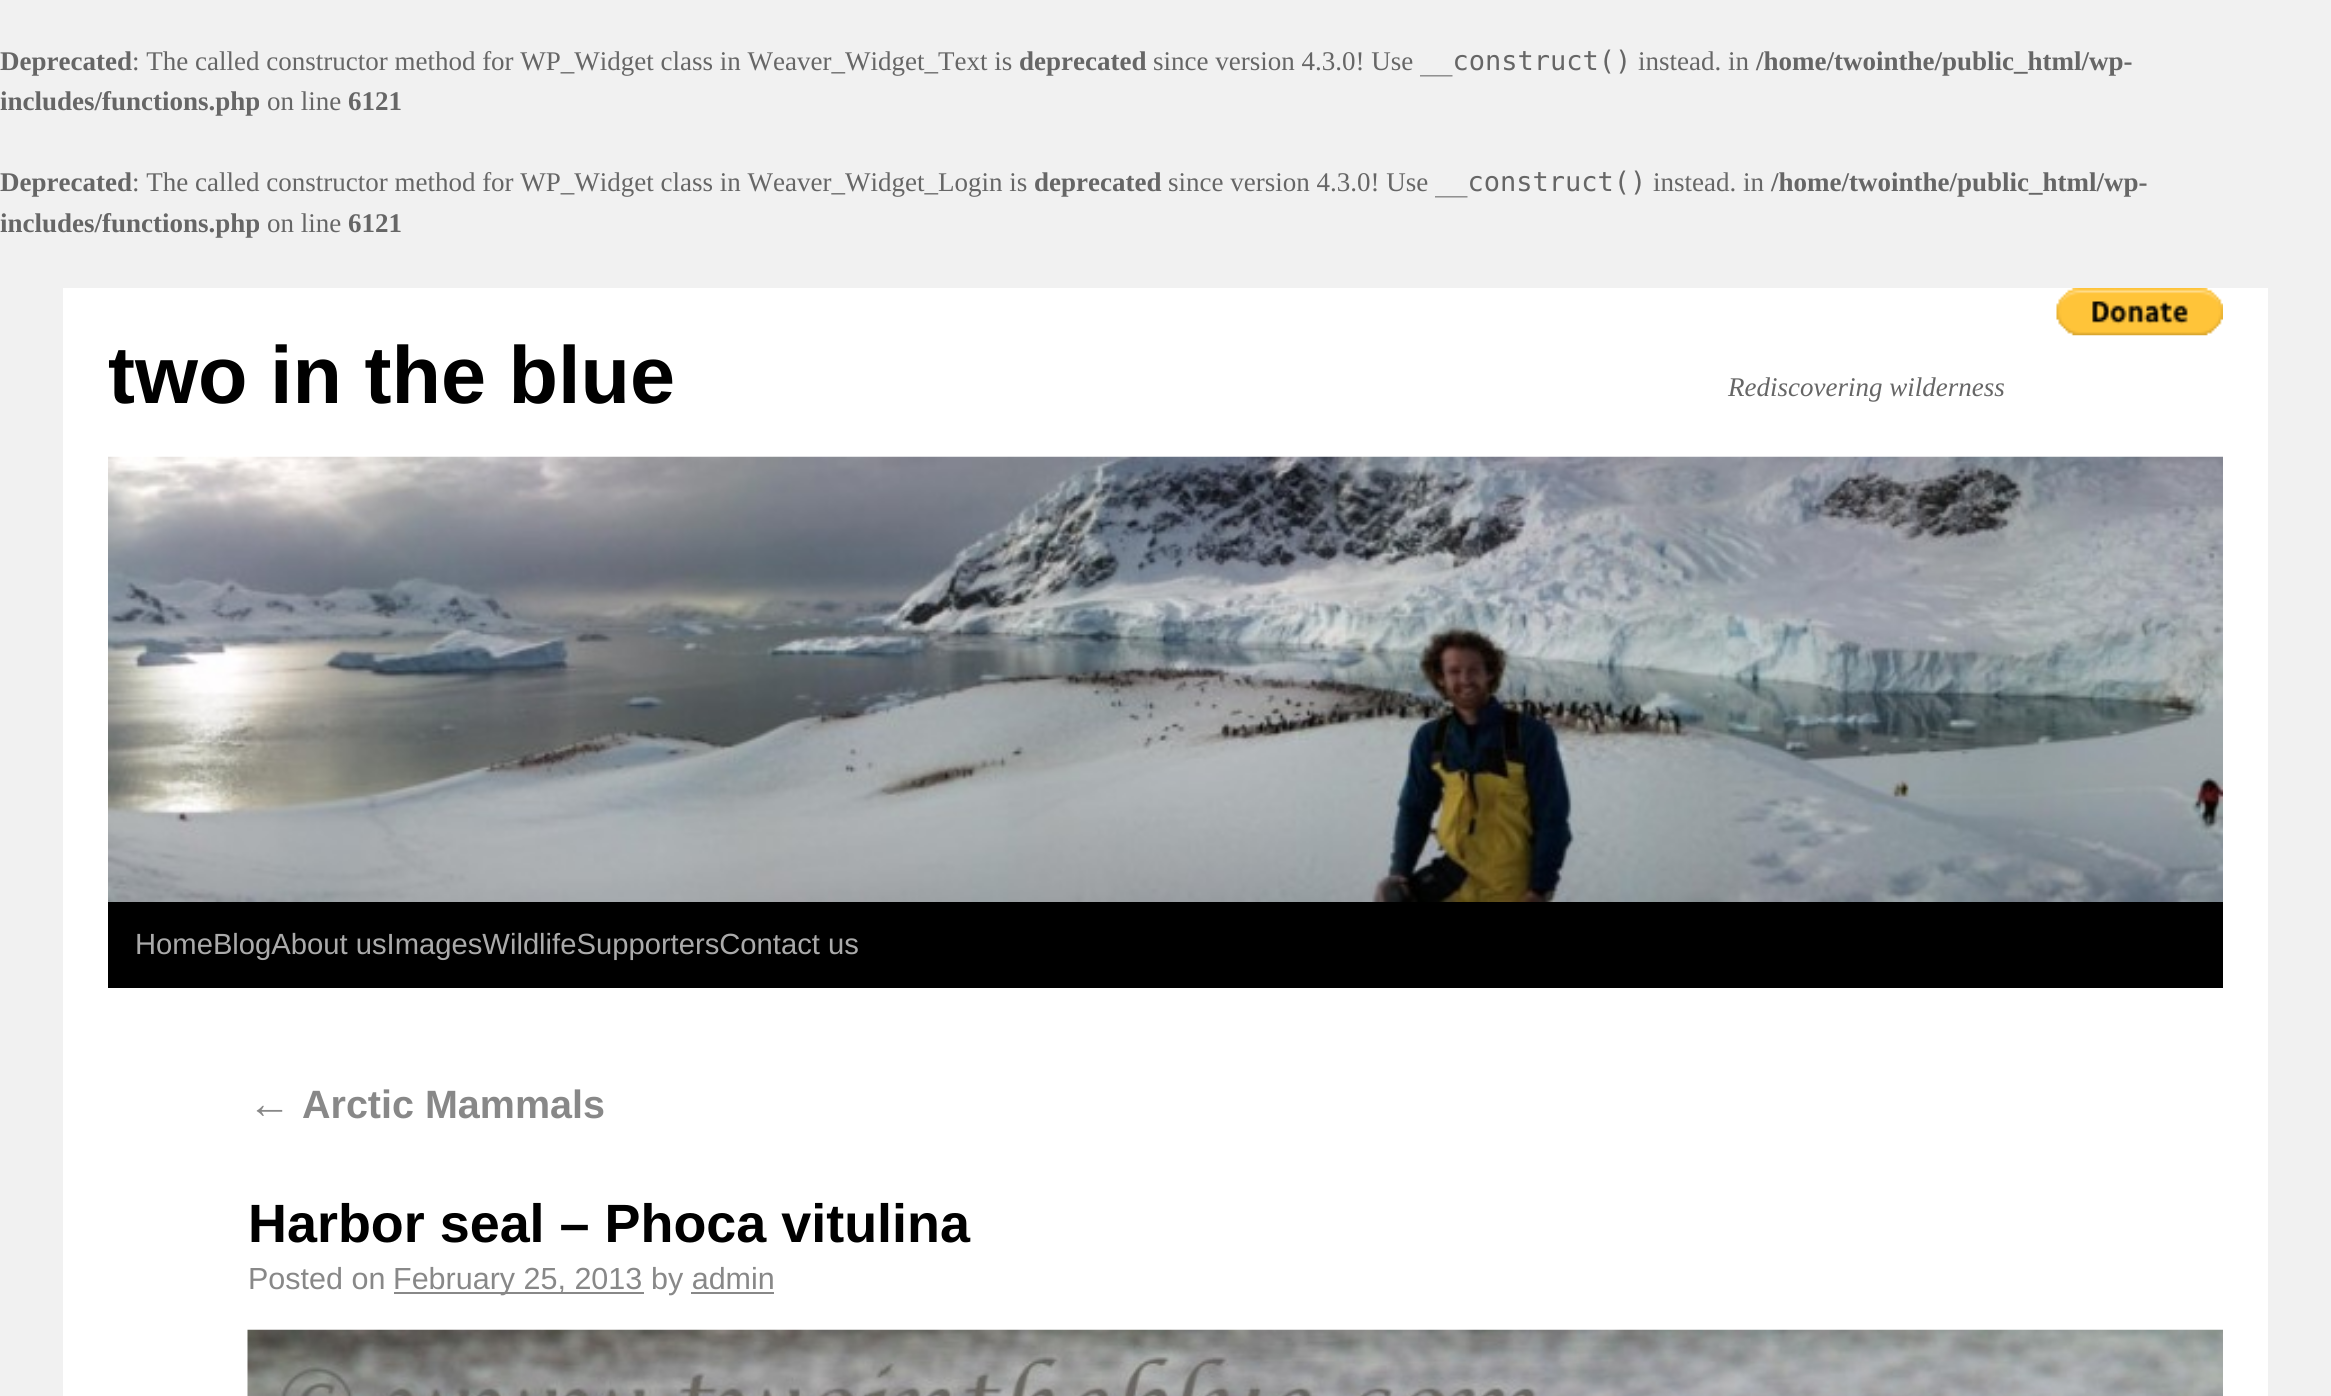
#include <cairo.h>
#include <math.h>
#include <stddef.h>

typedef struct { const char *family; double size; int italic, bold; unsigned color; } style_t;
static cairo_t *ctx;

static void ink(unsigned color) {
    cairo_set_source_rgb(ctx, (color >> 16) / 255.0, (color >> 8 & 255) / 255.0, (color & 255) / 255.0);
}

static void write(double x, double y, const char *s, const style_t *st) {
    cairo_select_font_face(ctx, st->family, st->italic ? CAIRO_FONT_SLANT_ITALIC : CAIRO_FONT_SLANT_NORMAL,
        st->bold ? CAIRO_FONT_WEIGHT_BOLD : CAIRO_FONT_WEIGHT_NORMAL);
    cairo_set_font_size(ctx, st->size);
    ink(st->color);
    cairo_move_to(ctx, x, y);
    cairo_show_text(ctx, s);
}

static void block(double x, double y, double w, double h, unsigned color) {
    ink(color);
    cairo_rectangle(ctx, x, y, w, h);
    cairo_fill(ctx);
}

static void paste(const char *path, double x, double y, double w, double h) {
    cairo_surface_t *image = cairo_image_surface_create_from_png(path);
    cairo_save(ctx);
    cairo_set_source_surface(ctx, image, x, y);
    cairo_rectangle(ctx, x, y, w, h);
    cairo_fill(ctx);
    cairo_restore(ctx);
    cairo_surface_destroy(image);
}

static const style_t s1 = {"Liberation Serif", 27, 0, 1, 0x666666};
static const style_t s2 = {"Liberation Serif", 27, 0, 0, 0x666666};
static const style_t s3 = {"DejaVu Sans Mono", 27, 0, 0, 0x666666};
static const style_t s4 = {"Liberation Sans", 81, 0, 1, 0x000000};
static const style_t s5 = {"Liberation Serif", 27, 1, 0, 0x666666};
static const style_t s6 = {"Liberation Sans", 29.2, 0, 0, 0xaaaaaa};
static const style_t s7 = {"Liberation Serif", 43, 1, 0, 0x888888};
static const style_t s8 = {"Liberation Sans", 39.5, 0, 1, 0x888888};
static const style_t s9 = {"Liberation Sans", 53.9, 0, 1, 0x000000};
static const style_t s10 = {"Liberation Sans", 30.5, 0, 0, 0x888888};

int main(void) {
    cairo_surface_t *surface = cairo_image_surface_create(CAIRO_FORMAT_RGB24, 2331, 1396);
    ctx = cairo_create(surface);
    cairo_font_options_t *options = cairo_font_options_create();
    cairo_font_options_set_hint_metrics(options, CAIRO_HINT_METRICS_OFF);
    cairo_font_options_set_hint_style(options, CAIRO_HINT_STYLE_NONE);
    cairo_set_font_options(ctx, options);
    cairo_set_miter_limit(ctx, 4);
    ink(0xf1f1f1);
    cairo_paint(ctx);
    write(0, 70, "Deprecated", &s1);
    write(132, 70, ": The called constructor method for WP_Widget class in Weaver_Widget_Text is", &s2);
    write(1019, 70, "deprecated", &s1);
    write(1153, 70, "since version 4.3.0! Use", &s2);
    write(1420, 70, "__construct()", &s3);
    write(1638, 70, "instead. in", &s2);
    write(1756, 70, "/home/twointhe/public_html/wp-", &s1);
    write(0, 110, "includes/functions.php", &s1);
    write(267, 110, "on line", &s2);
    write(348, 110, "6121", &s1);
    write(0, 191, "Deprecated", &s1);
    write(132, 191, ": The called constructor method for WP_Widget class in Weaver_Widget_Login is", &s2);
    write(1034, 191, "deprecated", &s1);
    write(1168, 191, "since version 4.3.0! Use", &s2);
    write(1435, 191, "__construct()", &s3);
    write(1653, 191, "instead. in", &s2);
    write(1771, 191, "/home/twointhe/public_html/wp-", &s1);
    write(0, 232, "includes/functions.php", &s1);
    write(267, 232, "on line", &s2);
    write(348, 232, "6121", &s1);
    block(63, 288, 2205, 1108, 0xffffff);
    paste("pic1.png", 2056, 288, 167, 48);
    write(108, 403, "two in the blue", &s4);
    write(1728, 396, "Rediscovering wilderness", &s5);
    paste("pic2.png", 108, 456, 2115, 446);
    block(108, 902, 2115, 86, 0x000000);
    write(135, 954, "HomeBlogAbout usImagesWildlifeSupportersContact us", &s6);
    write(248, 1118, "←", &s7);
    write(302, 1118, "Arctic Mammals", &s8);
    write(248, 1242, "Harbor seal – Phoca vitulina", &s9);
    write(248, 1289, "Posted on", &s10);
    block(394, 1292, 250, 2, 0x888888);
    write(393, 1289, "February 25, 2013", &s10);
    write(651, 1289, "by admin", &s10);
    block(691, 1292, 83, 2, 0x888888);
    paste("pic3.png", 247, 1329, 1976, 67);
    cairo_surface_write_to_png(surface, "screenshot.png");
    cairo_font_options_destroy(options);
    cairo_destroy(ctx);
    cairo_surface_destroy(surface);
    return 0;
}
